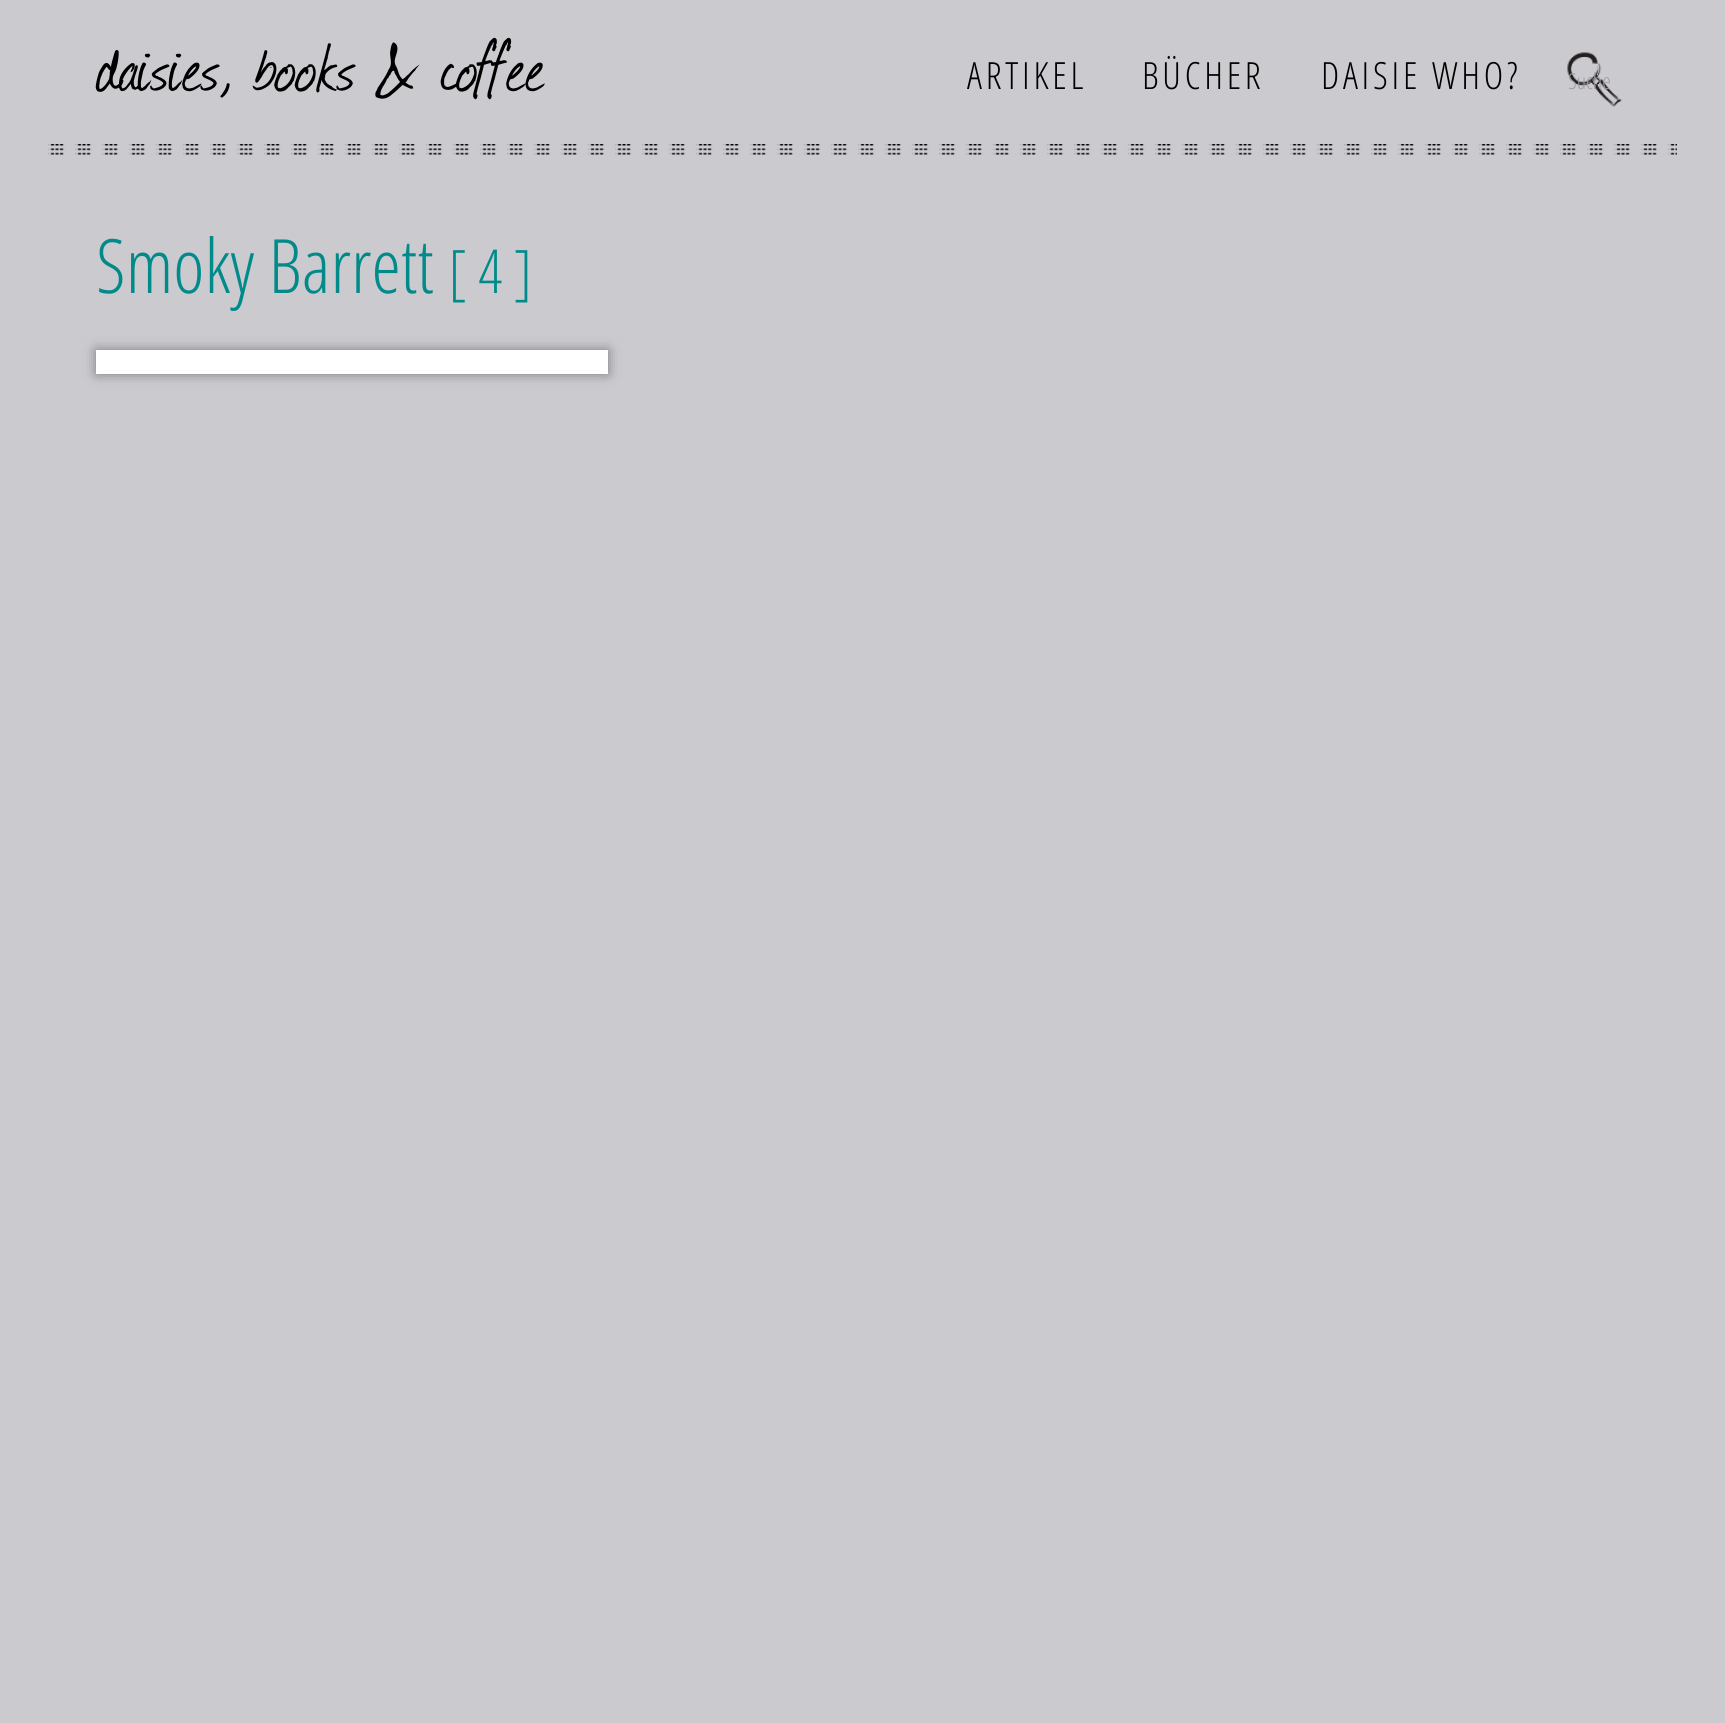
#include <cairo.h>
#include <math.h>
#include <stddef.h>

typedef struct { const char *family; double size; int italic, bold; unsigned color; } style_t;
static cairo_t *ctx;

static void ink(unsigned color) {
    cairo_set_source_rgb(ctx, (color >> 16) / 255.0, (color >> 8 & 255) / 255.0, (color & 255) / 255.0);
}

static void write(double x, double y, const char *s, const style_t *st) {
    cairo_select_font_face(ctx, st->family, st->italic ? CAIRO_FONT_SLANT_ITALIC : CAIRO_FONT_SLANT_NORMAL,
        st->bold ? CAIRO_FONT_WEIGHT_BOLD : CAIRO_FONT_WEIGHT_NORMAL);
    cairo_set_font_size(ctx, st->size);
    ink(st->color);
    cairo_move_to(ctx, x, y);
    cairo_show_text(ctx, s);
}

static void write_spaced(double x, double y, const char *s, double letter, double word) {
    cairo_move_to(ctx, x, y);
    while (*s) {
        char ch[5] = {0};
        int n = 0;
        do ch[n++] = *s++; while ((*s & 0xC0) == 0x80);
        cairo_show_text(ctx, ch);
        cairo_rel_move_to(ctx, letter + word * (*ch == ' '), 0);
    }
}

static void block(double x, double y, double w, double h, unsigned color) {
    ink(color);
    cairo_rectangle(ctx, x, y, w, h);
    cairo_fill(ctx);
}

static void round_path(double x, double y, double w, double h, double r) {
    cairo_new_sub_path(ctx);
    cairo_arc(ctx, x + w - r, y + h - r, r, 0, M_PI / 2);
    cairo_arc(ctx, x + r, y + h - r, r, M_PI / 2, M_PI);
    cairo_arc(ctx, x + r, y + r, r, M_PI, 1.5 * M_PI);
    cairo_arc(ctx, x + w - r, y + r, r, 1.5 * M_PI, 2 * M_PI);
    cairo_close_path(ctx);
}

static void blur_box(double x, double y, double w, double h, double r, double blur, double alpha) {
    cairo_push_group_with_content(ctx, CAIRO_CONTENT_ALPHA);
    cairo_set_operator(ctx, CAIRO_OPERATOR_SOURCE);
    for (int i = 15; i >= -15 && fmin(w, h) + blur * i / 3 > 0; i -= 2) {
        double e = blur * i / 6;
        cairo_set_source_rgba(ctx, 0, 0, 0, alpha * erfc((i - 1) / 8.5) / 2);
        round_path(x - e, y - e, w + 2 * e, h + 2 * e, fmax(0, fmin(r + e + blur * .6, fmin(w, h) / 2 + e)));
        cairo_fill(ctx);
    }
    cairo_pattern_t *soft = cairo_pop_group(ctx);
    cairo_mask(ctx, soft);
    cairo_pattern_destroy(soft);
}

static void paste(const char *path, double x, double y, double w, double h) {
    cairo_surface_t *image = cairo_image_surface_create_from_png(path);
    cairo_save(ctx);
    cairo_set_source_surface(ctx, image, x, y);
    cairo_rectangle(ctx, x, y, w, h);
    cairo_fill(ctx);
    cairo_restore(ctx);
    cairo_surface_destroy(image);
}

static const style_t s1 = {"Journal", 82.5, 0, 0, 0x000000};
static const style_t s2 = {"Open Sans Light", 22, 0, 0, 0x9f9da1};
static const style_t s3 = {"Open Sans Light", 75, 0, 0, 0x018a8a};
static const style_t s4 = {"Open Sans Light", 60, 0, 0, 0x018a8a};

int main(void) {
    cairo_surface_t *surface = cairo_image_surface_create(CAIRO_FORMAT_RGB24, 1725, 1723);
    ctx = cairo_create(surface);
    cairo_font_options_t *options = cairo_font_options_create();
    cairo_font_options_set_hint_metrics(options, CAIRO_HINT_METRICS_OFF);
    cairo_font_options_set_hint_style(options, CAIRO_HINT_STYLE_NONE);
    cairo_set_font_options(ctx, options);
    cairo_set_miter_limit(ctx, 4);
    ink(0xcbcacf);
    cairo_paint(ctx);
    paste("pic1.png", 48, 144, 1629, 11);
    write(96, 89, "daisies, books & coffee", &s1);
    cairo_select_font_face(ctx, "Open Sans Light", CAIRO_FONT_SLANT_NORMAL, CAIRO_FONT_WEIGHT_NORMAL);
    cairo_set_font_size(ctx, 37.5);
    write_spaced(967, 89, "ARTIKEL", 3.75, 0);
    write_spaced(1142, 89, "BÜCHER", 3.75, 0);
    write_spaced(1321, 89, "DAISIE WHO?", 3.75, 0);
    paste("pic2.png", 1567, 52, 55, 55);
    write(1568, 89, "Suche", &s2);
    write(96, 293, "Smoky Barrett", &s3);
    write(448, 293, "[ 4 ]", &s4);
    ink(0x000000);
    blur_box(96, 350, 512, 24, 0, 6, 0.4);
    block(96, 350, 512, 24, 0xffffff);
    cairo_surface_write_to_png(surface, "screenshot.png");
    cairo_font_options_destroy(options);
    cairo_destroy(ctx);
    cairo_surface_destroy(surface);
    return 0;
}
